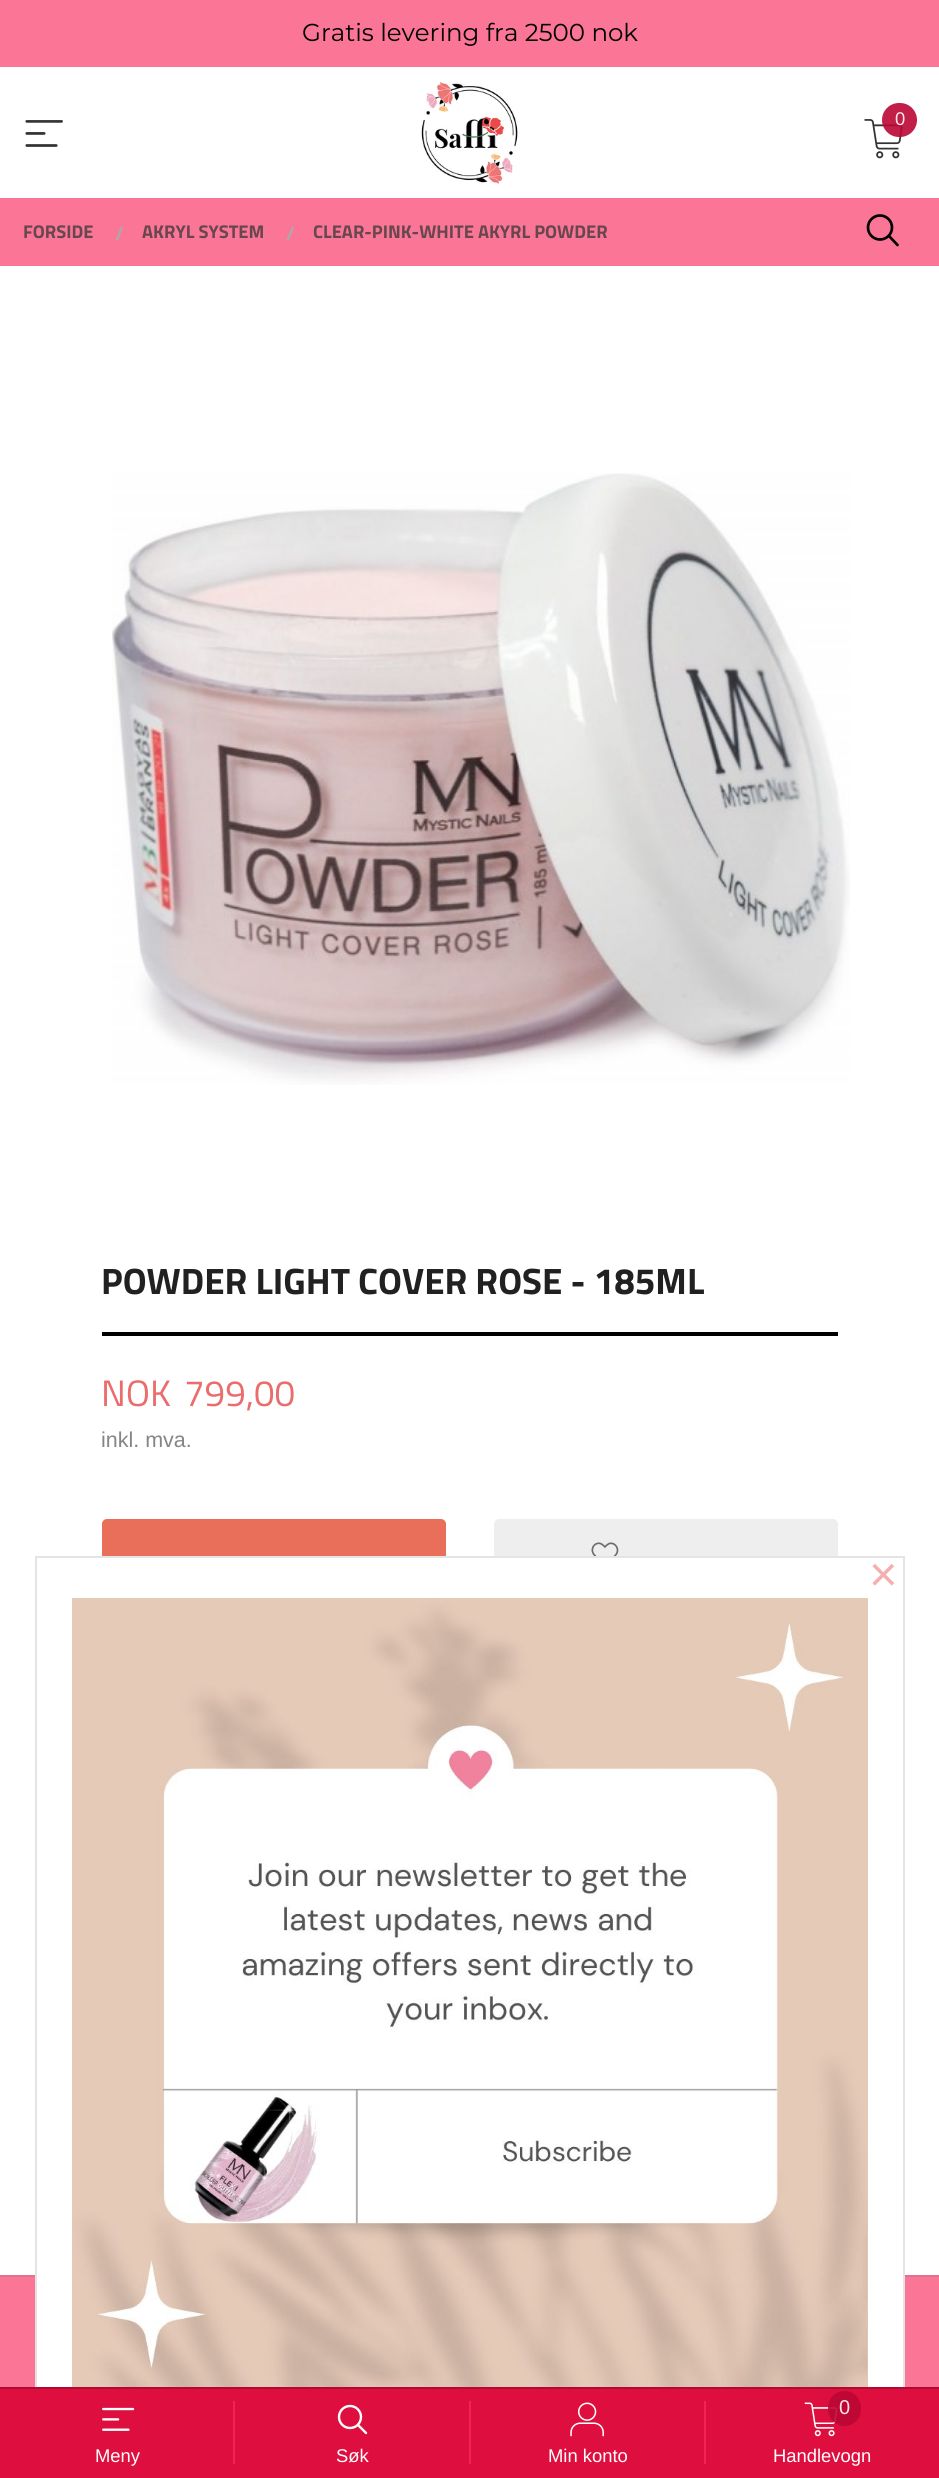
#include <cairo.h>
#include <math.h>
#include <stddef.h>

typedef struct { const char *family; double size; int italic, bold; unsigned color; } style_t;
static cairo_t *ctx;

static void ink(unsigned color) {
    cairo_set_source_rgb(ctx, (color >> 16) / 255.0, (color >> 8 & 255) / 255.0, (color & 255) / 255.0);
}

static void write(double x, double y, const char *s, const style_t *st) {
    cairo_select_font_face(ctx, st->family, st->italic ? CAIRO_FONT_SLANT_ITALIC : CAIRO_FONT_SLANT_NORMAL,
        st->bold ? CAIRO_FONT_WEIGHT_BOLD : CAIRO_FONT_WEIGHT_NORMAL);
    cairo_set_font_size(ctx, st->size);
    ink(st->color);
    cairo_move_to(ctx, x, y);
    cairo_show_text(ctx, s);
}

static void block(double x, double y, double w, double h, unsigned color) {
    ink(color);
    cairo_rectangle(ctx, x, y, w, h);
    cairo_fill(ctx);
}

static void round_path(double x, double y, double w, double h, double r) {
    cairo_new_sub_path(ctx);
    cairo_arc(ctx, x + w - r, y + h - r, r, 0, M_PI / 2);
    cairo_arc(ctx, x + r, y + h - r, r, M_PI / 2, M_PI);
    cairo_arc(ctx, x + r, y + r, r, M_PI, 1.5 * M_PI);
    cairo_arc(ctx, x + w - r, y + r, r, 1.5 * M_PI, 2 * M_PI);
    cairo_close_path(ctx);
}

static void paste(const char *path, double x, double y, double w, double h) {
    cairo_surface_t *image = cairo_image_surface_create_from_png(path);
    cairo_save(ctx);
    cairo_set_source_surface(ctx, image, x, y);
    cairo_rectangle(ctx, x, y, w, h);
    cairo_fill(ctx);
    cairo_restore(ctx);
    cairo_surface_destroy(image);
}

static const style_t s1 = {"Montserrat", 24.5, 0, 0, 0x000000};
static const style_t s2 = {"Liberation Sans", 18.4, 0, 0, 0xfce7ec};
static const style_t s3 = {"Titillium Web", 18.4, 0, 1, 0x67464e};
static const style_t s4 = {"Titillium Web", 18.4, 0, 1, 0xaaaaaa};
static const style_t s5 = {"Titillium Web", 36.75, 0, 1, 0x212121};
static const style_t s6 = {"Titillium Web", 36.75, 0, 0, 0xeb6c6c};
static const style_t s7 = {"Liberation Sans", 21.5, 0, 0, 0x858585};
static const style_t s8 = {"Liberation Sans", 49, 0, 0, 0xf4afaf};
static const style_t s9 = {"Liberation Sans", 18.4, 0, 0, 0xffffff};
static const style_t s10 = {"Liberation Sans", 20, 0, 0, 0xfce7ec};

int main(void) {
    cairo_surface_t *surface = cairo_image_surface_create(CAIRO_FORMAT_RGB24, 939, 2478);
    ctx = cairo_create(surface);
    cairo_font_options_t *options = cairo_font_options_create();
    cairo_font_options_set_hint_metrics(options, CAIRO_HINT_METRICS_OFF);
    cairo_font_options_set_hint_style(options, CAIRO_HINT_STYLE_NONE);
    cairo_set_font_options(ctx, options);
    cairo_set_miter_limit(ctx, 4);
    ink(0xfa7596);
    cairo_paint(ctx);
    write(302, 41, "Gratis levering fra 2500 nok", &s1);
    block(0, 67, 939, 131, 0xffffff);
    paste("pic1.png", 25, 120, 38, 27);
    paste("pic2.png", 421, 82, 97, 102);
    paste("pic3.png", 864, 119, 39, 40);
    cairo_set_source_rgba(ctx, 0.733, 0.027, 0.2, 0.9);
    round_path(882, 103, 35, 34, 17);
    cairo_fill(ctx);
    write(895, 125, "0", &s2);
    write(23, 238, "FORSIDE", &s3);
    write(115, 240, "/", &s4);
    write(142, 238, "AKRYL SYSTEM", &s3);
    write(286, 240, "/", &s4);
    write(313, 238, "CLEAR-PINK-WHITE AKYRL POWDER", &s3);
    cairo_new_path(ctx);
    cairo_arc(ctx, 880, 227.5, 12, 0, 2 * M_PI);
    ink(0x000000);
    cairo_set_line_width(ctx, 2.7);
    cairo_stroke(ctx);
    cairo_new_path(ctx);
    cairo_move_to(ctx, 897.5, 245);
    cairo_line_to(ctx, 889, 236);
    cairo_set_line_cap(ctx, CAIRO_LINE_CAP_ROUND);
    cairo_stroke(ctx);
    block(0, 266, 939, 2009, 0xffffff);
    paste("pic4.png", 112, 473, 738, 612);
    block(102, 1332, 736, 4, 0x000000);
    write(101, 1294, "POWDER LIGHT COVER ROSE - 185ML", &s5);
    write(101, 1406, "NOK", &s6);
    write(184, 1406, "799,00", &s6);
    write(101, 1447, "inkl. mva.", &s7);
    ink(0xe96f5b);
    round_path(102, 1519, 344, 72, 5);
    cairo_fill(ctx);
    ink(0xeeeeee);
    round_path(494, 1519, 344, 72, 5);
    cairo_fill(ctx);
    paste("pic5.png", 591, 1542, 28, 14);
    block(0, 2275, 939, 2, 0xe66f8c);
    block(37, 1558, 866, 829, 0xffffff);
    cairo_rectangle(ctx, 36, 1557, 868, 885);
    ink(0xe4e4e4);
    cairo_set_line_width(ctx, 2);
    cairo_set_line_cap(ctx, CAIRO_LINE_CAP_BUTT);
    cairo_stroke(ctx);
    write(869, 1591, "×", &s8);
    paste("pic6.png", 72, 1598, 796, 789);
    block(0, 2389, 939, 89, 0xde0e3e);
    block(0, 2387, 939, 2, 0xae0b31);
    paste("pic7.png", 102, 2407, 33, 24);
    write(95, 2462, "Meny", &s9);
    block(233, 2401, 2, 63, 0xf12453);
    cairo_new_path(ctx);
    cairo_arc(ctx, 350, 2417, 11, 0, 2 * M_PI);
    ink(0xffffff);
    cairo_set_line_width(ctx, 2.4);
    cairo_stroke(ctx);
    cairo_new_path(ctx);
    cairo_move_to(ctx, 366, 2433);
    cairo_line_to(ctx, 358, 2425);
    cairo_set_line_cap(ctx, CAIRO_LINE_CAP_ROUND);
    cairo_stroke(ctx);
    write(336, 2462, "Søk", &s9);
    block(469, 2401, 2, 63, 0xf12453);
    paste("pic8.png", 570, 2402, 34, 35);
    write(548, 2462, "Min konto", &s9);
    block(704, 2401, 2, 63, 0xf12453);
    paste("pic9.png", 804, 2402, 34, 35);
    cairo_set_source_rgba(ctx, 0.733, 0.027, 0.2, 0.9);
    round_path(828, 2391, 33, 35, 16.5);
    cairo_fill(ctx);
    write(839, 2414, "0", &s10);
    write(773, 2462, "Handlevogn", &s9);
    cairo_surface_write_to_png(surface, "screenshot.png");
    cairo_font_options_destroy(options);
    cairo_destroy(ctx);
    cairo_surface_destroy(surface);
    return 0;
}
